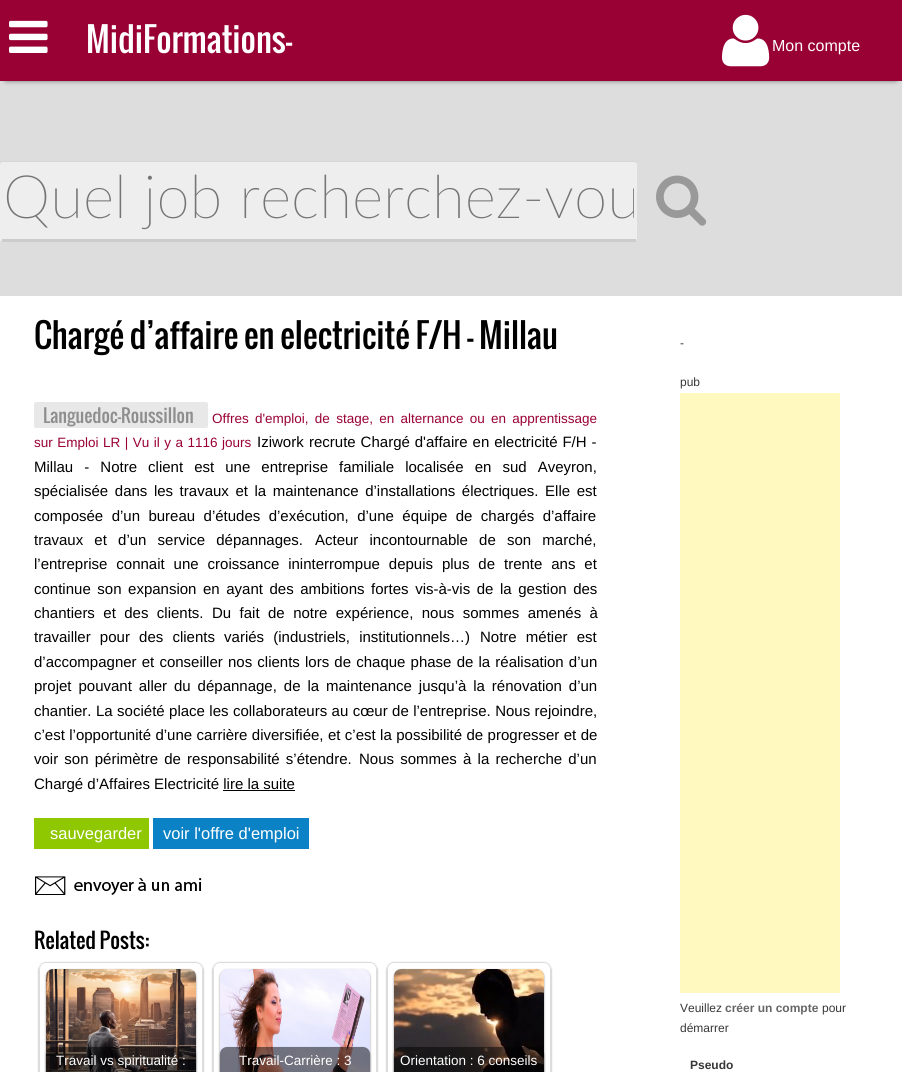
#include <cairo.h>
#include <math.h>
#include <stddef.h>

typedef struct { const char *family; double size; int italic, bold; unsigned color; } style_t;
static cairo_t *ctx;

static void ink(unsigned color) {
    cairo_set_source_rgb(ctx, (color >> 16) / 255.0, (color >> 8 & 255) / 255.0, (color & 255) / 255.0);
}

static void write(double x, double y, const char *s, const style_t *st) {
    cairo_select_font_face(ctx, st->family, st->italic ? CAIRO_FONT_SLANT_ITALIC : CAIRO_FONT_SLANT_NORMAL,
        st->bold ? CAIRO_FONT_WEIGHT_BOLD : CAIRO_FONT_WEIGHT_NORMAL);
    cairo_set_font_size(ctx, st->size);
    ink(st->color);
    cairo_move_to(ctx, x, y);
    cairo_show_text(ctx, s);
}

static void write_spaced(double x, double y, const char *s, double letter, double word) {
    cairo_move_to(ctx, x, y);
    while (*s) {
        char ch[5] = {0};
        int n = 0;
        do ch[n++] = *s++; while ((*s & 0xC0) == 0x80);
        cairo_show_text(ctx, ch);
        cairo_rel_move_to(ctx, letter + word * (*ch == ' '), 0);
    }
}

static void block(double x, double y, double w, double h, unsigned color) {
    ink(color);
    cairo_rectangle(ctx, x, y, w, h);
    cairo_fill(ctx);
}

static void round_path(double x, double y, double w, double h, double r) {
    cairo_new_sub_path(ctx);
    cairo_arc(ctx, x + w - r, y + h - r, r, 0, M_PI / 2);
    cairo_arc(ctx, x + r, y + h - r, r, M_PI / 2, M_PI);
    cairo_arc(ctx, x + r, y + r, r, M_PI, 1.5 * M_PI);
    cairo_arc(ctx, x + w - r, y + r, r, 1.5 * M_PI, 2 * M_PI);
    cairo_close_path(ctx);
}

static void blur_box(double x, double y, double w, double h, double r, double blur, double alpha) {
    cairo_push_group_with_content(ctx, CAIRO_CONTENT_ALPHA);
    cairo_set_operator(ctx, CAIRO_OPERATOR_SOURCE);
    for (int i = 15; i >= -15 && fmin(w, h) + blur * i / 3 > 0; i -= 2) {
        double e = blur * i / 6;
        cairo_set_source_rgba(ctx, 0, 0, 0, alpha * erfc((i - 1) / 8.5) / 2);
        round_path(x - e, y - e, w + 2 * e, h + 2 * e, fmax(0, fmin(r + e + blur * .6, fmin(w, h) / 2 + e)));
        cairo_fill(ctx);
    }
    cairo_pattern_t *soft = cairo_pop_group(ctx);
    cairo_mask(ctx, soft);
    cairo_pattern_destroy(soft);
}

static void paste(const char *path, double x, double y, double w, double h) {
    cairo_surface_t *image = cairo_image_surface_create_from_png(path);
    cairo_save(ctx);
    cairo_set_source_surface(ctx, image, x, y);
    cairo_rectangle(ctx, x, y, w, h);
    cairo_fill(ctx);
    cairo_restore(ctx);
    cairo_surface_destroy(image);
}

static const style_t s1 = {"Oswald", 33, 0, 0, 0xffffff};
static const style_t s2 = {"Liberation Sans", 16, 0, 0, 0xffffff};
static const style_t s3 = {"Lato Thin", 60, 0, 0, 0x757575};
static const style_t s4 = {"Oswald", 33, 0, 0, 0x000000};
static const style_t s5 = {"Oswald", 18, 0, 0, 0x8e8e8e};
static const style_t s6 = {"Liberation Sans", 15, 0, 0, 0x000000};
static const style_t s7 = {"Liberation Sans", 16.5, 0, 0, 0xffffff};
static const style_t s8 = {"Oswald", 21, 0, 0, 0x000000};
static const style_t s9 = {"Liberation Sans", 13.5, 0, 0, 0xffffff};
static const style_t s10 = {"Liberation Sans", 12, 0, 0, 0x373737};
static const style_t s11 = {"Liberation Sans", 12, 0, 1, 0x666666};
static const style_t s12 = {"Liberation Sans", 12, 0, 1, 0x373737};

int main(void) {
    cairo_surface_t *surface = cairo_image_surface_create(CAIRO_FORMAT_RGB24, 902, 1072);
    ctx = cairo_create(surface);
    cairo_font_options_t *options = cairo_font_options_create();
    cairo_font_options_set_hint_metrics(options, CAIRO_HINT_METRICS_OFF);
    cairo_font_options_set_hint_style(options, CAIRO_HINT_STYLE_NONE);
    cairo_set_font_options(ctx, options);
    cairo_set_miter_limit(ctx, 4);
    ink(0xffffff);
    cairo_paint(ctx);
    block(0, 81, 902, 215, 0xdddddd);
    ink(0x000000);
    blur_box(6, 10, 890, 69, 0, 3, 1);
    block(0, 0, 902, 81, 0x990033);
    paste("pic1.png", 9, 20, 39, 33);
    write(86, 53, "MidiFormations-", &s1);
    paste("pic2.png", 722, 14, 48, 53);
    write(772, 51, "Mon compte", &s2);
    ink(0xeeeeee);
    round_path(0, 161, 637, 81, 3);
    cairo_fill(ctx);
    cairo_set_source_rgba(ctx, 0, 0, 0, 0.1);
    cairo_new_path(ctx);
    cairo_move_to(ctx, 3, 162);
    cairo_line_to(ctx, 634, 162);
    cairo_curve_to(ctx, 636, 162, 637, 163, 637, 165);
    cairo_line_to(ctx, 637, 164);
    cairo_curve_to(ctx, 637, 162, 636, 161, 634, 161);
    cairo_line_to(ctx, 3, 161);
    cairo_curve_to(ctx, 1, 161, 0, 162, 0, 164);
    cairo_line_to(ctx, 0, 165);
    cairo_curve_to(ctx, 0, 163, 1, 162, 3, 162);
    cairo_close_path(ctx);
    cairo_fill(ctx);
    block(2, 239, 634, 3, 0xcccccc);
    cairo_save(ctx);
    cairo_rectangle(ctx, 3, 164, 631, 72);
    cairo_clip(ctx);
    write(3, 218, "Quel job recherchez-vou", &s3);
    cairo_restore(ctx);
    paste("pic3.png", 656, 175, 51, 51);
    write(34, 349, "Chargé d’affaire en electricité F/H – Millau", &s4);
    ink(0xe8e8e8);
    round_path(34, 402, 174, 26, 2);
    cairo_fill(ctx);
    write(43, 423, "Languedoc-Roussillon", &s5);
    cairo_select_font_face(ctx, "Liberation Sans", CAIRO_FONT_SLANT_NORMAL, CAIRO_FONT_WEIGHT_NORMAL);
    cairo_set_font_size(ctx, 13.5);
    ink(0x990033);
    write_spaced(212, 423, "Offres d'emploi, de stage, en alternance ou en apprentissage", 0, 2.5);
    write_spaced(34, 447, "sur Emploi LR | Vu il y a 1116 jours", 0, 0.75);
    write(257, 447, "Iziwork", &s6);
    write_spaced(309, 447, "recrute Chargé d'affaire en electricité F/H -", 0, 0.75);
    write_spaced(34, 472, "Millau - Notre client est une entreprise familiale localisée en sud Aveyron,", 0, 6.9);
    write_spaced(34, 496, "spécialisée dans les travaux et la maintenance d’installations électriques. Elle est", 0, 2.4);
    write_spaced(34, 521, "composée d’un bureau d’études d’exécution, d’une équipe de chargés d’affaire", 0, 4.25);
    write_spaced(34, 545, "travaux et d’un service dépannages.", 0, 7);
    write_spaced(315, 545, "Acteur incontournable de son marché,", 0, 7);
    write_spaced(34, 569, "l’entreprise connait une croissance ininterrompue depuis plus de trente ans et", 0, 4.75);
    write_spaced(34, 594, "continue son expansion en ayant des ambitions fortes vis-à-vis de la gestion des", 0, 2.4);
    write_spaced(34, 618, "chantiers et des clients.", 0, 4.25);
    write_spaced(212, 618, "Du fait de notre expérience, nous sommes amenés à", 0, 4.25);
    write_spaced(34, 642, "travailler pour des clients variés (industriels, institutionnels…)", 0, 5);
    write_spaced(480, 642, "Notre métier est", 0, 5);
    write_spaced(34, 667, "d’accompagner et conseiller nos clients lors de chaque phase de la réalisation d’un", 0, 1);
    write_spaced(34, 691, "projet pouvant aller du dépannage, de la maintenance jusqu’à la rénovation d’un", 0, 2.75);
    write(34, 716, "chantier.", &s6);
    write_spaced(96, 716, "La société place les collaborateurs au cœur de l’entreprise. Nous rejoindre,", 0, 0.25);
    write_spaced(34, 740, "c’est l’opportunité d’une carrière diversifiée, et c’est la possibilité de progresser et de", 0, 0.25);
    write_spaced(34, 764, "voir son périmètre de responsabilité s’étendre.", 0, 2);
    write_spaced(359, 764, "Nous sommes à la recherche d’un", 0, 2);
    write(34, 789, "Chargé d’Affaires Electricité lire la suite", &s6);
    block(223, 790, 72, 1, 0x000000);
    block(34, 818, 115, 31, 0x8fc800);
    write(50, 839, "sauvegarder", &s7);
    block(153, 818, 156, 31, 0x0b82c6);
    write(163, 839, "voir l'offre d'emploi", &s7);
    paste("pic4.png", 35, 876, 167, 19);
    write(34, 949, "Related Posts:", &s8);
    cairo_save(ctx);
    cairo_set_fill_rule(ctx, CAIRO_FILL_RULE_EVEN_ODD);
    cairo_new_path(ctx);
    cairo_move_to(ctx, 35, 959);
    cairo_line_to(ctx, 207, 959);
    cairo_line_to(ctx, 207, 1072);
    cairo_line_to(ctx, 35, 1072);
    cairo_close_path(ctx);
    cairo_move_to(ctx, 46, 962);
    cairo_line_to(ctx, 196, 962);
    cairo_curve_to(ctx, 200, 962, 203, 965, 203, 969);
    cairo_line_to(ctx, 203, 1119);
    cairo_curve_to(ctx, 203, 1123, 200, 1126, 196, 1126);
    cairo_line_to(ctx, 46, 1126);
    cairo_curve_to(ctx, 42, 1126, 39, 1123, 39, 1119);
    cairo_line_to(ctx, 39, 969);
    cairo_curve_to(ctx, 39, 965, 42, 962, 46, 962);
    cairo_close_path(ctx);
    cairo_clip(ctx);
    ink(0x000000);
    blur_box(39, 963, 164, 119, 7, 1, 0.4);
    cairo_restore(ctx);
    round_path(39.5, 962.5, 163, 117, 6.5);
    ink(0xdddddd);
    cairo_set_line_width(ctx, 1);
    cairo_stroke(ctx);
    ink(0x000000);
    blur_box(46, 970, 150, 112, 7, 1, 0.4);
    paste("pic5.png", 46, 969, 150, 103);
    cairo_save(ctx);
    cairo_set_fill_rule(ctx, CAIRO_FILL_RULE_EVEN_ODD);
    cairo_new_path(ctx);
    cairo_move_to(ctx, 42, 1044);
    cairo_line_to(ctx, 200, 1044);
    cairo_line_to(ctx, 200, 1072);
    cairo_line_to(ctx, 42, 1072);
    cairo_close_path(ctx);
    cairo_move_to(ctx, 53, 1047);
    cairo_line_to(ctx, 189, 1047);
    cairo_curve_to(ctx, 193, 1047, 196, 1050, 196, 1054);
    cairo_line_to(ctx, 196, 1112);
    cairo_curve_to(ctx, 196, 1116, 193, 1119, 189, 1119);
    cairo_line_to(ctx, 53, 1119);
    cairo_curve_to(ctx, 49, 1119, 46, 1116, 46, 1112);
    cairo_line_to(ctx, 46, 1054);
    cairo_curve_to(ctx, 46, 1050, 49, 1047, 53, 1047);
    cairo_close_path(ctx);
    cairo_clip(ctx);
    blur_box(46, 1048, 150, 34, 7, 1, 0.4);
    cairo_restore(ctx);
    cairo_set_source_rgba(ctx, 0, 0, 0, 0.5);
    round_path(46, 1047, 150, 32, 7);
    cairo_fill(ctx);
    write(56, 1065, "Travail vs spiritualité :", &s9);
    cairo_save(ctx);
    cairo_set_fill_rule(ctx, CAIRO_FILL_RULE_EVEN_ODD);
    cairo_new_path(ctx);
    cairo_move_to(ctx, 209, 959);
    cairo_line_to(ctx, 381, 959);
    cairo_line_to(ctx, 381, 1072);
    cairo_line_to(ctx, 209, 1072);
    cairo_close_path(ctx);
    cairo_move_to(ctx, 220, 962);
    cairo_line_to(ctx, 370, 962);
    cairo_curve_to(ctx, 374, 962, 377, 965, 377, 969);
    cairo_line_to(ctx, 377, 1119);
    cairo_curve_to(ctx, 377, 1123, 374, 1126, 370, 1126);
    cairo_line_to(ctx, 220, 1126);
    cairo_curve_to(ctx, 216, 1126, 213, 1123, 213, 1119);
    cairo_line_to(ctx, 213, 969);
    cairo_curve_to(ctx, 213, 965, 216, 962, 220, 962);
    cairo_close_path(ctx);
    cairo_clip(ctx);
    ink(0x000000);
    blur_box(213, 963, 164, 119, 7, 1, 0.4);
    cairo_restore(ctx);
    round_path(213.5, 962.5, 163, 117, 6.5);
    ink(0xdddddd);
    cairo_stroke(ctx);
    ink(0x000000);
    blur_box(220, 970, 150, 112, 7, 1, 0.4);
    paste("pic6.png", 220, 969, 150, 103);
    cairo_save(ctx);
    cairo_set_fill_rule(ctx, CAIRO_FILL_RULE_EVEN_ODD);
    cairo_new_path(ctx);
    cairo_move_to(ctx, 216, 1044);
    cairo_line_to(ctx, 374, 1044);
    cairo_line_to(ctx, 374, 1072);
    cairo_line_to(ctx, 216, 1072);
    cairo_close_path(ctx);
    cairo_move_to(ctx, 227, 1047);
    cairo_line_to(ctx, 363, 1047);
    cairo_curve_to(ctx, 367, 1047, 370, 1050, 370, 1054);
    cairo_line_to(ctx, 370, 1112);
    cairo_curve_to(ctx, 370, 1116, 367, 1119, 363, 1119);
    cairo_line_to(ctx, 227, 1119);
    cairo_curve_to(ctx, 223, 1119, 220, 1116, 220, 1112);
    cairo_line_to(ctx, 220, 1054);
    cairo_curve_to(ctx, 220, 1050, 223, 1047, 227, 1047);
    cairo_close_path(ctx);
    cairo_clip(ctx);
    blur_box(220, 1048, 150, 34, 7, 1, 0.4);
    cairo_restore(ctx);
    cairo_set_source_rgba(ctx, 0, 0, 0, 0.5);
    round_path(220, 1047, 150, 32, 7);
    cairo_fill(ctx);
    write(239, 1065, "Travail-Carrière : 3", &s9);
    cairo_save(ctx);
    cairo_set_fill_rule(ctx, CAIRO_FILL_RULE_EVEN_ODD);
    cairo_new_path(ctx);
    cairo_move_to(ctx, 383, 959);
    cairo_line_to(ctx, 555, 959);
    cairo_line_to(ctx, 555, 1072);
    cairo_line_to(ctx, 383, 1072);
    cairo_close_path(ctx);
    cairo_move_to(ctx, 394, 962);
    cairo_line_to(ctx, 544, 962);
    cairo_curve_to(ctx, 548, 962, 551, 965, 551, 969);
    cairo_line_to(ctx, 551, 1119);
    cairo_curve_to(ctx, 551, 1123, 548, 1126, 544, 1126);
    cairo_line_to(ctx, 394, 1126);
    cairo_curve_to(ctx, 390, 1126, 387, 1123, 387, 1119);
    cairo_line_to(ctx, 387, 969);
    cairo_curve_to(ctx, 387, 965, 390, 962, 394, 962);
    cairo_close_path(ctx);
    cairo_clip(ctx);
    ink(0x000000);
    blur_box(387, 963, 164, 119, 7, 1, 0.4);
    cairo_restore(ctx);
    round_path(387.5, 962.5, 163, 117, 6.5);
    ink(0xdddddd);
    cairo_stroke(ctx);
    ink(0x000000);
    blur_box(394, 970, 150, 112, 7, 1, 0.4);
    paste("pic7.png", 394, 969, 150, 103);
    cairo_save(ctx);
    cairo_set_fill_rule(ctx, CAIRO_FILL_RULE_EVEN_ODD);
    cairo_new_path(ctx);
    cairo_move_to(ctx, 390, 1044);
    cairo_line_to(ctx, 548, 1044);
    cairo_line_to(ctx, 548, 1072);
    cairo_line_to(ctx, 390, 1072);
    cairo_close_path(ctx);
    cairo_move_to(ctx, 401, 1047);
    cairo_line_to(ctx, 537, 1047);
    cairo_curve_to(ctx, 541, 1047, 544, 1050, 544, 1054);
    cairo_line_to(ctx, 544, 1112);
    cairo_curve_to(ctx, 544, 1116, 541, 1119, 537, 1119);
    cairo_line_to(ctx, 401, 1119);
    cairo_curve_to(ctx, 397, 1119, 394, 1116, 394, 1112);
    cairo_line_to(ctx, 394, 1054);
    cairo_curve_to(ctx, 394, 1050, 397, 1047, 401, 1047);
    cairo_close_path(ctx);
    cairo_clip(ctx);
    blur_box(394, 1048, 150, 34, 7, 1, 0.4);
    cairo_restore(ctx);
    cairo_set_source_rgba(ctx, 0, 0, 0, 0.5);
    round_path(394, 1047, 150, 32, 7);
    cairo_fill(ctx);
    write(400, 1065, "Orientation : 6 conseils", &s9);
    write(680, 347, "-", &s10);
    write(680, 386, "pub", &s10);
    block(680, 393, 160, 600, 0xfff9c0);
    write(680, 1012, "Veuillez", &s10);
    write(725, 1012, "créer un compte", &s11);
    write(822, 1012, "pour", &s10);
    write(680, 1032, "démarrer", &s10);
    write(690, 1069, "Pseudo", &s12);
    cairo_surface_write_to_png(surface, "screenshot.png");
    cairo_font_options_destroy(options);
    cairo_destroy(ctx);
    cairo_surface_destroy(surface);
    return 0;
}
